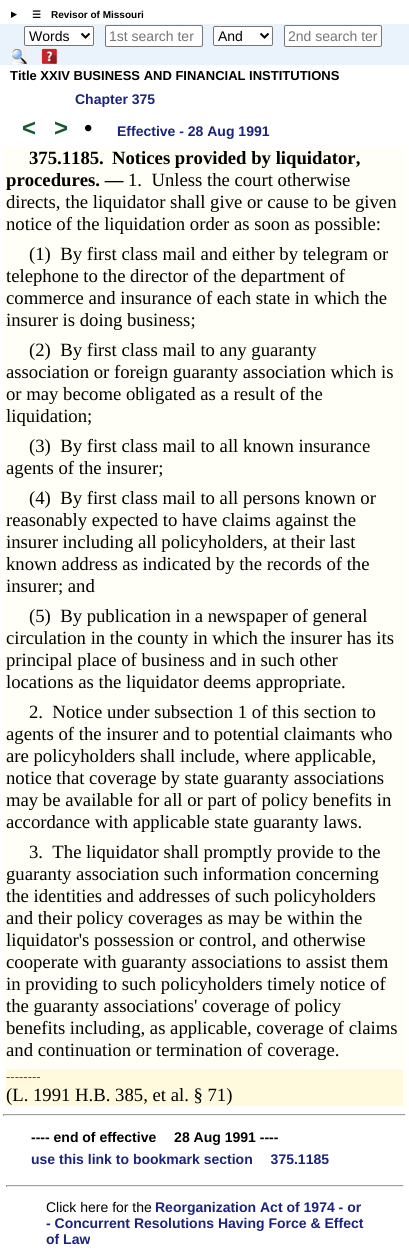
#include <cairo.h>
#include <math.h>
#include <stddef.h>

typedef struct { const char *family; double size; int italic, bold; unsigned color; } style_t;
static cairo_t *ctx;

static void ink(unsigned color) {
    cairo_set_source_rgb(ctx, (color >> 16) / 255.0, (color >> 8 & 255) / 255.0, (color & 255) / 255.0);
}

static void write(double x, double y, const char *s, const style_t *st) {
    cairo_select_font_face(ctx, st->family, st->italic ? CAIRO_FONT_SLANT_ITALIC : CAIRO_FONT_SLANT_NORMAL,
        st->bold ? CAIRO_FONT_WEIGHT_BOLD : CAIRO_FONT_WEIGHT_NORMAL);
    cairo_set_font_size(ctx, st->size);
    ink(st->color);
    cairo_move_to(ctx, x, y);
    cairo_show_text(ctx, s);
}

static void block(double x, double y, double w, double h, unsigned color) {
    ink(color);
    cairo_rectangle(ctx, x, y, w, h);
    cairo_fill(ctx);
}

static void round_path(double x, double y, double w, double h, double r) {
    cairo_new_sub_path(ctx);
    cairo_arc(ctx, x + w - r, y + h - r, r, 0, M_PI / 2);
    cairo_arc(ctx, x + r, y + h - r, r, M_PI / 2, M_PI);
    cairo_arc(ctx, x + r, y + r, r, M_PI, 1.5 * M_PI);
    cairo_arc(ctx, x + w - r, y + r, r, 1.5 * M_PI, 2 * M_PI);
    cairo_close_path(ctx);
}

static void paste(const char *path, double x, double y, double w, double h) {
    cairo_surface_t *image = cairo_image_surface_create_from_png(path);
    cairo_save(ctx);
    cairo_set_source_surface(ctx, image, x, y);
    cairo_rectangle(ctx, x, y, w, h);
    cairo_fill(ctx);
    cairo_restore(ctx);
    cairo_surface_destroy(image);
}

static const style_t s1 = {"DejaVu Sans", 10, 0, 1, 0x000000};
static const style_t s2 = {"Liberation Sans", 10, 0, 1, 0x000000};
static const style_t s3 = {"Liberation Sans", 14, 0, 0, 0x000000};
static const style_t s4 = {"Liberation Sans", 14, 0, 0, 0x757575};
static const style_t s5 = {"Liberation Sans", 13, 0, 1, 0x000000};
static const style_t s6 = {"Liberation Sans", 14, 0, 1, 0x1a237e};
static const style_t s7 = {"Liberation Sans", 24, 0, 1, 0x145a32};
static const style_t s8 = {"Liberation Sans", 24, 0, 0, 0x000000};
static const style_t s9 = {"Liberation Serif", 18.7, 0, 1, 0x000000};
static const style_t s10 = {"Liberation Serif", 18.7, 0, 0, 0x000000};
static const style_t s11 = {"Liberation Sans", 13, 0, 0, 0xff0000};
static const style_t s12 = {"Liberation Sans", 14, 0, 1, 0x000000};

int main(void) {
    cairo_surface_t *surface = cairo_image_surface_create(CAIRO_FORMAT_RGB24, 409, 1259);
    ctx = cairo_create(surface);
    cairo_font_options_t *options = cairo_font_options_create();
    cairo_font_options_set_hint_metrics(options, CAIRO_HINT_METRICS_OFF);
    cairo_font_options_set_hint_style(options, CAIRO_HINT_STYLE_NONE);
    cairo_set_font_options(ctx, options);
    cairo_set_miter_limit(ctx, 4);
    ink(0xffffff);
    cairo_paint(ctx);
    ink(0x000000);
    cairo_new_path(ctx);
    cairo_move_to(ctx, 11, 11.5);
    cairo_line_to(ctx, 17, 14.5);
    cairo_line_to(ctx, 11, 18);
    cairo_close_path(ctx);
    cairo_fill(ctx);
    write(32, 18, "☰", &s1);
    write(51, 18, "Revisor of Missouri", &s2);
    block(0, 24, 409, 41, 0xeaf3fb);
    ink(0xffffff);
    round_path(24.5, 26.5, 69, 19, 1.5);
    cairo_fill_preserve(ctx);
    ink(0x767676);
    cairo_set_line_width(ctx, 1);
    cairo_stroke(ctx);
    cairo_new_path(ctx);
    cairo_move_to(ctx, 81.5, 33.5);
    cairo_line_to(ctx, 85.5, 37.5);
    cairo_line_to(ctx, 89.5, 33.5);
    ink(0x000000);
    cairo_set_line_width(ctx, 2);
    cairo_stroke(ctx);
    write(29, 41, "Words", &s3);
    ink(0xffffff);
    round_path(105.5, 25.5, 97, 21, 1.5);
    cairo_fill_preserve(ctx);
    ink(0x767676);
    cairo_set_line_width(ctx, 1);
    cairo_stroke(ctx);
    write(109, 41, "1st search ter", &s4);
    ink(0xffffff);
    round_path(213.5, 26.5, 59, 19, 1.5);
    cairo_fill_preserve(ctx);
    ink(0x767676);
    cairo_stroke(ctx);
    cairo_new_path(ctx);
    cairo_move_to(ctx, 260.5, 33.5);
    cairo_line_to(ctx, 264.5, 37.5);
    cairo_line_to(ctx, 268.5, 33.5);
    ink(0x000000);
    cairo_set_line_width(ctx, 2);
    cairo_stroke(ctx);
    write(218, 41, "And", &s3);
    ink(0xffffff);
    round_path(284.5, 25.5, 97, 21, 1.5);
    cairo_fill_preserve(ctx);
    ink(0x767676);
    cairo_set_line_width(ctx, 1);
    cairo_stroke(ctx);
    write(288, 41, "2nd search ter", &s4);
    paste("pic1.png", 11, 48, 16, 16);
    paste("pic2.png", 41, 48, 16, 16);
    write(10, 80, "Title XXIV BUSINESS AND FINANCIAL INSTITUTIONS", &s5);
    write(75, 104, "Chapter 375", &s6);
    write(22, 136, "<", &s7);
    write(54, 136, ">", &s7);
    write(84, 136, "•", &s8);
    write(117, 136, "Effective - 28 Aug 1991", &s6);
    block(3, 147, 403, 959, 0xfffff7);
    write(29, 164, "375.1185.", &s9);
    write(112, 164, "Notices provided by liquidator,", &s9);
    write(6, 186, "procedures. —", &s9);
    write(128, 186, "1.  Unless the court otherwise", &s10);
    write(6, 208, "directs, the liquidator shall give or cause to be given", &s10);
    write(6, 230, "notice of the liquidation order as soon as possible:", &s10);
    write(29, 260, "(1)  By first class mail and either by telegram or", &s10);
    write(6, 282, "telephone to the director of the department of", &s10);
    write(6, 304, "commerce and insurance of each state in which the", &s10);
    write(6, 326, "insurer is doing business;", &s10);
    write(29, 356, "(2)  By first class mail to any guaranty", &s10);
    write(6, 378, "association or foreign guaranty association which is", &s10);
    write(6, 400, "or may become obligated as a result of the", &s10);
    write(6, 422, "liquidation;", &s10);
    write(29, 452, "(3)  By first class mail to all known insurance", &s10);
    write(6, 474, "agents of the insurer;", &s10);
    write(29, 504, "(4)  By first class mail to all persons known or", &s10);
    write(6, 526, "reasonably expected to have claims against the", &s10);
    write(6, 548, "insurer including all policyholders, at their last", &s10);
    write(6, 570, "known address as indicated by the records of the", &s10);
    write(6, 592, "insurer; and", &s10);
    write(29, 622, "(5)  By publication in a newspaper of general", &s10);
    write(6, 644, "circulation in the county in which the insurer has its", &s10);
    write(6, 666, "principal place of business and in such other", &s10);
    write(6, 688, "locations as the liquidator deems appropriate.", &s10);
    write(29, 718, "2.  Notice under subsection 1 of this section to", &s10);
    write(6, 740, "agents of the insurer and to potential claimants who", &s10);
    write(6, 762, "are policyholders shall include, where applicable,", &s10);
    write(6, 784, "notice that coverage by state guaranty associations", &s10);
    write(6, 806, "may be available for all or part of policy benefits in", &s10);
    write(6, 828, "accordance with applicable state guaranty laws.", &s10);
    write(29, 858, "3.  The liquidator shall promptly provide to the", &s10);
    write(6, 880, "guaranty association such information concerning", &s10);
    write(6, 902, "the identities and addresses of such policyholders", &s10);
    write(6, 924, "and their policy coverages as may be within the", &s10);
    write(6, 946, "liquidator's possession or control, and otherwise", &s10);
    write(6, 968, "cooperate with guaranty associations to assist them", &s10);
    write(6, 990, "in providing to such policyholders timely notice of", &s10);
    write(6, 1012, "the guaranty associations' coverage of policy", &s10);
    write(6, 1034, "benefits including, as applicable, coverage of claims", &s10);
    write(6, 1056, "and continuation or termination of coverage.", &s10);
    block(6, 1069, 397, 37, 0xfffade);
    write(6, 1081, "--------", &s11);
    write(6, 1101, "(L. 1991 H.B. 385, et al. § 71)", &s10);
    block(3, 1114, 403, 1, 0x9f9f9f);
    block(405, 1114, 1, 2, 0xeeeeee);
    block(3, 1115, 403, 1, 0xeeeeee);
    block(3, 1114, 1, 2, 0x9f9f9f);
    write(31, 1142, "---- end of effective  28 Aug 1991 ----", &s12);
    write(31, 1164, "use this link to bookmark section  375.1185", &s6);
    block(6, 1185, 398, 1, 0x9f9f9f);
    block(403, 1185, 1, 2, 0xeeeeee);
    block(6, 1186, 398, 1, 0xeeeeee);
    block(6, 1185, 1, 2, 0x9f9f9f);
    write(46, 1212, "Click here for the", &s3);
    write(155, 1212, "Reorganization Act of 1974 - or", &s6);
    write(46, 1228, "- Concurrent Resolutions Having Force & Effect", &s6);
    write(46, 1244, "of Law", &s6);
    cairo_surface_write_to_png(surface, "screenshot.png");
    cairo_font_options_destroy(options);
    cairo_destroy(ctx);
    cairo_surface_destroy(surface);
    return 0;
}
